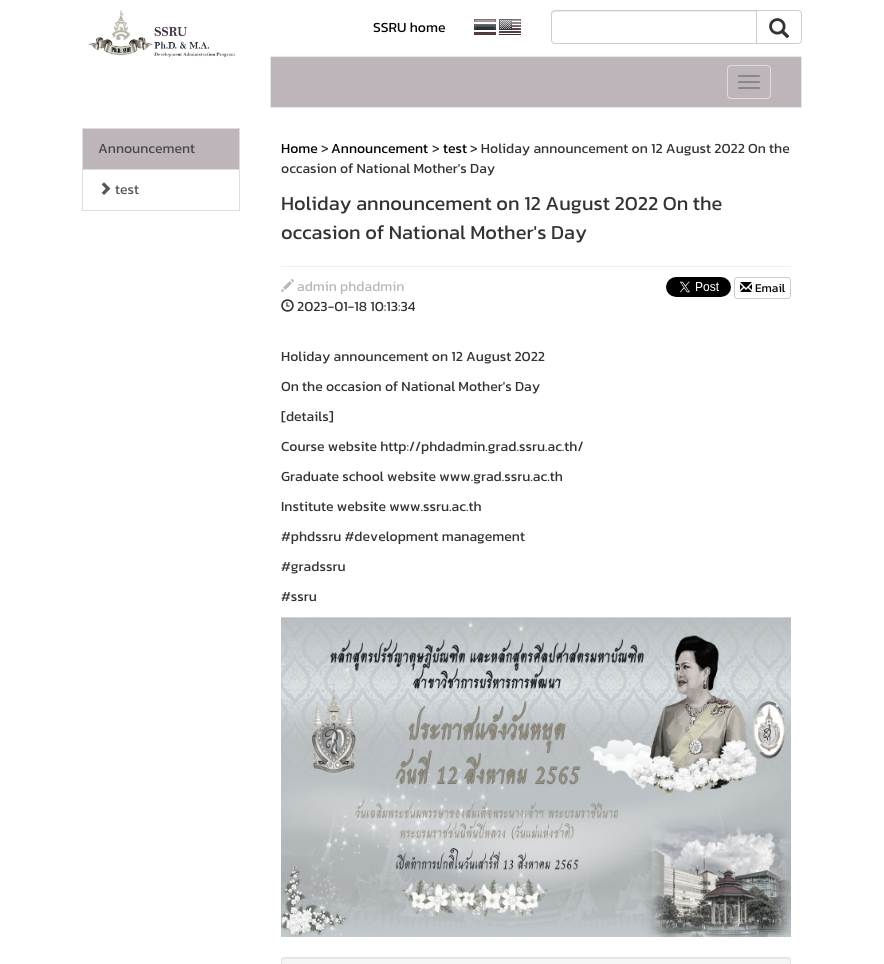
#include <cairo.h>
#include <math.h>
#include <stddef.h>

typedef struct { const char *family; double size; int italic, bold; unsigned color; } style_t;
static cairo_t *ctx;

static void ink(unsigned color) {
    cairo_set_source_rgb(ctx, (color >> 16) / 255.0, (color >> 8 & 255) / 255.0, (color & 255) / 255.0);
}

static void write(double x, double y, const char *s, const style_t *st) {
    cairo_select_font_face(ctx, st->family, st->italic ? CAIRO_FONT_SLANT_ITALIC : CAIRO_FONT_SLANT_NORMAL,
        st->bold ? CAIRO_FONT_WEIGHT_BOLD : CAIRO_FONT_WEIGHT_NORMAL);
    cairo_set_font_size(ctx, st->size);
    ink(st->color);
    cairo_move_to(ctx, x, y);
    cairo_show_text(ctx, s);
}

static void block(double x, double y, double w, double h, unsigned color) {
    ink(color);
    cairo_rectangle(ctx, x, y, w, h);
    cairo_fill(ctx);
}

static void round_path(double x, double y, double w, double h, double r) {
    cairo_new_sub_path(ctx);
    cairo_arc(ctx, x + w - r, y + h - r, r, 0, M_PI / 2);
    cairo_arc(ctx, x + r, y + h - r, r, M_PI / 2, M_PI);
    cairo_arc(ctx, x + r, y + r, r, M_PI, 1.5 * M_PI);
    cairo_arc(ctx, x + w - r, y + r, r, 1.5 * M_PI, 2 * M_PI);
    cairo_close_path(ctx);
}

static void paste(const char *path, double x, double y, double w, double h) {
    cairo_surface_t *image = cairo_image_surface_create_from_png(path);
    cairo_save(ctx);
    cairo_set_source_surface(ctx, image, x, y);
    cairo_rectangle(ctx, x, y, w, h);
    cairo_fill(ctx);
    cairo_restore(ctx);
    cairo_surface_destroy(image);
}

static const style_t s1 = {"Kanit", 14, 0, 0, 0x030308};
static const style_t s2 = {"Kanit", 14, 0, 0, 0x47484f};
static const style_t s3 = {"Kanit", 14, 0, 0, 0x555555};
static const style_t s4 = {"Kanit", 14, 0, 0, 0x000000};
static const style_t s5 = {"Kanit", 14, 0, 0, 0x333333};
static const style_t s6 = {"Kanit", 20, 0, 0, 0x333333};
static const style_t s7 = {"Kanit", 14, 0, 0, 0xbdb5b9};
static const style_t s8 = {"Kanit", 12, 0, 0, 0x000000};

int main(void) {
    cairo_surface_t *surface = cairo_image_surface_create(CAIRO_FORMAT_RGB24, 884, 964);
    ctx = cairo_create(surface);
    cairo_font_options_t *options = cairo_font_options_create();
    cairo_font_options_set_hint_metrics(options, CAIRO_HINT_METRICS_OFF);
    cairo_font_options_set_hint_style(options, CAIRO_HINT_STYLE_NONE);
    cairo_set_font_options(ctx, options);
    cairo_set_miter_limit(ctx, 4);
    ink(0xffffff);
    cairo_paint(ctx);
    paste("pic1.png", 88, 10, 147, 47);
    write(373, 32, "SSRU home", &s1);
    paste("pic2.png", 474, 19, 22, 16);
    paste("pic3.png", 499, 19, 22, 16);
    ink(0xececec);
    cairo_new_path(ctx);
    cairo_move_to(ctx, 555, 12);
    cairo_line_to(ctx, 756, 12);
    cairo_line_to(ctx, 756, 11);
    cairo_line_to(ctx, 554, 11);
    cairo_curve_to(ctx, 552, 12, 552, 13, 552, 15);
    cairo_curve_to(ctx, 552, 13, 553, 12, 555, 12);
    cairo_close_path(ctx);
    cairo_fill(ctx);
    cairo_new_path(ctx);
    cairo_move_to(ctx, 555, 10.5);
    cairo_line_to(ctx, 756.5, 10.5);
    cairo_line_to(ctx, 756.5, 43.5);
    cairo_line_to(ctx, 555, 43.5);
    cairo_curve_to(ctx, 553, 43.5, 551.5, 42, 551.5, 40);
    cairo_line_to(ctx, 551.5, 14);
    cairo_curve_to(ctx, 551.5, 12, 553, 10.5, 555, 10.5);
    cairo_close_path(ctx);
    ink(0xcccccc);
    cairo_set_line_width(ctx, 1);
    cairo_stroke(ctx);
    ink(0xffffff);
    cairo_new_path(ctx);
    cairo_move_to(ctx, 756.5, 10.5);
    cairo_line_to(ctx, 798, 10.5);
    cairo_curve_to(ctx, 800, 10.5, 801.5, 12, 801.5, 14);
    cairo_line_to(ctx, 801.5, 40);
    cairo_curve_to(ctx, 801.5, 42, 800, 43.5, 798, 43.5);
    cairo_line_to(ctx, 756.5, 43.5);
    cairo_close_path(ctx);
    cairo_fill_preserve(ctx);
    ink(0xcccccc);
    cairo_stroke(ctx);
    paste("pic4.png", 769, 18, 21, 21);
    ink(0xbdb5b9);
    cairo_rectangle(ctx, 270.5, 56.5, 531, 51);
    cairo_fill_preserve(ctx);
    ink(0xe7e7e7);
    cairo_stroke(ctx);
    round_path(727.5, 65.5, 43, 33, 3.5);
    ink(0xdddddd);
    cairo_stroke(ctx);
    ink(0x888888);
    round_path(738, 75, 22, 2, 1);
    cairo_fill(ctx);
    round_path(738, 81, 22, 2, 1);
    cairo_fill(ctx);
    round_path(738, 87, 22, 2, 1);
    cairo_fill(ctx);
    cairo_rectangle(ctx, 82.5, 169.5, 157, 41);
    ink(0xdddddd);
    cairo_stroke(ctx);
    ink(0xbdb5b9);
    cairo_rectangle(ctx, 82.5, 128.5, 157, 41);
    cairo_fill_preserve(ctx);
    ink(0xdddddd);
    cairo_stroke(ctx);
    write(98, 153, "Announcement", &s2);
    paste("pic5.png", 101, 182, 10, 13);
    write(115, 194, "test", &s3);
    write(281, 153, "Home", &s4);
    write(321, 153, ">", &s5);
    write(331, 153, "Announcement", &s4);
    write(432, 153, ">", &s5);
    write(443, 153, "test", &s4);
    write(470, 153, "> Holiday announcement on 12 August 2022 On the", &s5);
    write(281, 173, "occasion of National Mother's Day", &s5);
    write(281, 210, "Holiday announcement on 12 August 2022 On the", &s6);
    write(281, 239, "occasion of National Mother's Day", &s6);
    block(281, 266, 510, 1, 0xeeeeee);
    paste("pic6.png", 281, 279, 13, 13);
    write(297, 291, "admin phdadmin", &s7);
    paste("pic7.png", 281, 299, 13, 13);
    write(297, 311, "2023-01-18 10:13:34", &s5);
    paste("pic8.png", 666, 277, 65, 20);
    round_path(734.5, 277.5, 56, 21, 2.5);
    ink(0xcccccc);
    cairo_stroke(ctx);
    paste("pic9.png", 740, 282, 12, 10);
    write(755, 292, "Email", &s8);
    write(281, 361, "Holiday announcement on 12 August 2022", &s5);
    write(281, 391, "On the occasion of National Mother's Day", &s5);
    write(281, 421, "[details]", &s5);
    write(281, 451, "Course website http://phdadmin.grad.ssru.ac.th/", &s5);
    write(281, 481, "Graduate school website www.grad.ssru.ac.th", &s5);
    write(281, 511, "Institute website www.ssru.ac.th", &s5);
    write(281, 541, "#phdssru #development management", &s5);
    write(281, 571, "#gradssru", &s5);
    write(281, 601, "#ssru", &s5);
    paste("pic10.png", 281, 617, 510, 320);
    ink(0xf5f5f5);
    round_path(281, 957, 510, 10, 3);
    cairo_fill(ctx);
    ink(0xe9e9e9);
    cairo_new_path(ctx);
    cairo_move_to(ctx, 284, 959);
    cairo_line_to(ctx, 788, 959);
    cairo_curve_to(ctx, 789, 959, 790, 960, 790, 961);
    cairo_curve_to(ctx, 790, 960, 790, 958, 788, 958);
    cairo_line_to(ctx, 284, 958);
    cairo_line_to(ctx, 282, 959);
    cairo_line_to(ctx, 282, 961);
    cairo_curve_to(ctx, 282, 960, 283, 959, 284, 959);
    cairo_close_path(ctx);
    cairo_fill(ctx);
    round_path(281.5, 957.5, 509, 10, 2.5);
    ink(0xe3e3e3);
    cairo_stroke(ctx);
    cairo_surface_write_to_png(surface, "screenshot.png");
    cairo_font_options_destroy(options);
    cairo_destroy(ctx);
    cairo_surface_destroy(surface);
    return 0;
}
